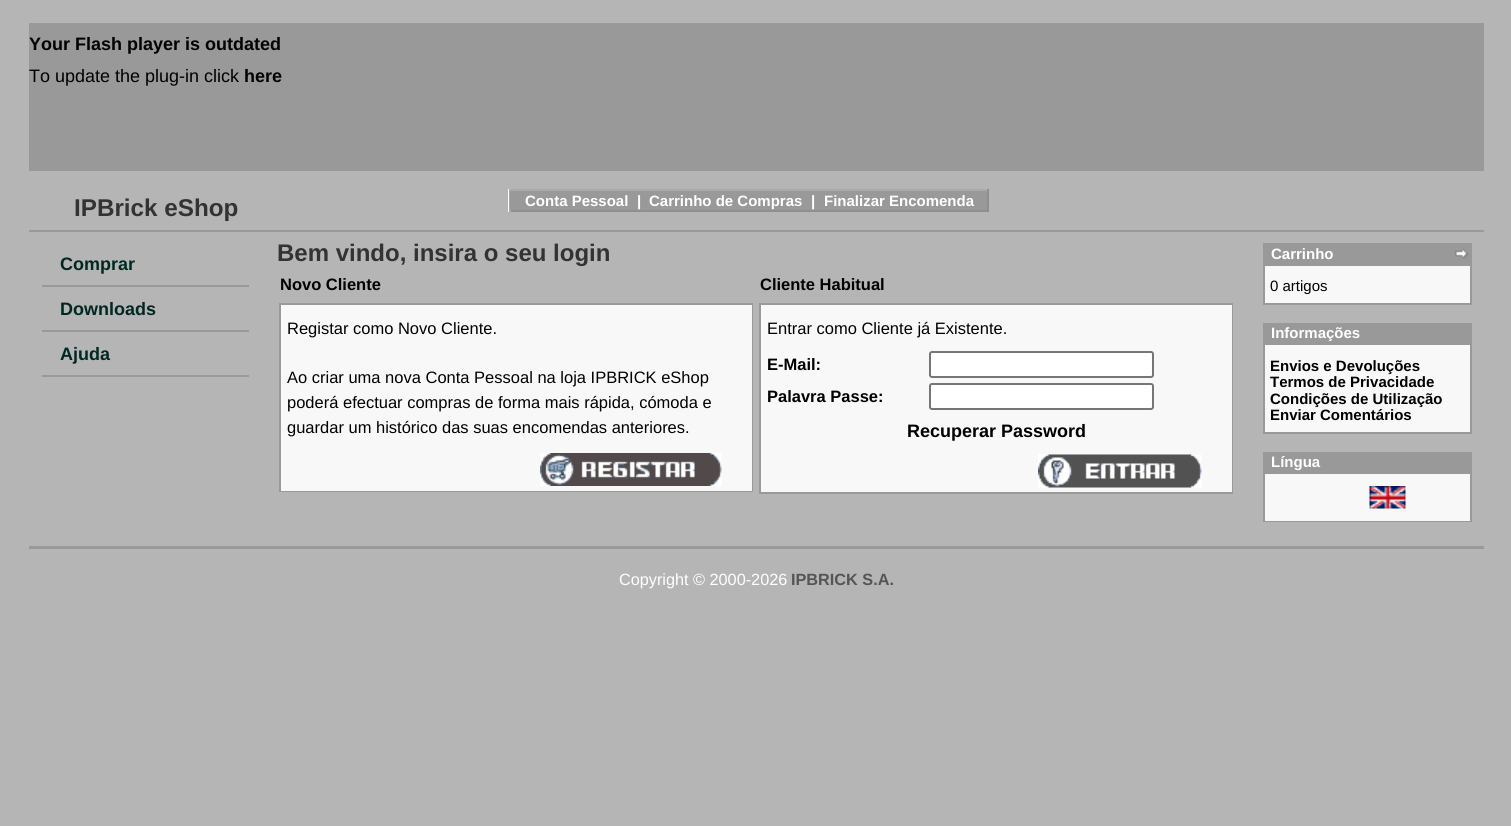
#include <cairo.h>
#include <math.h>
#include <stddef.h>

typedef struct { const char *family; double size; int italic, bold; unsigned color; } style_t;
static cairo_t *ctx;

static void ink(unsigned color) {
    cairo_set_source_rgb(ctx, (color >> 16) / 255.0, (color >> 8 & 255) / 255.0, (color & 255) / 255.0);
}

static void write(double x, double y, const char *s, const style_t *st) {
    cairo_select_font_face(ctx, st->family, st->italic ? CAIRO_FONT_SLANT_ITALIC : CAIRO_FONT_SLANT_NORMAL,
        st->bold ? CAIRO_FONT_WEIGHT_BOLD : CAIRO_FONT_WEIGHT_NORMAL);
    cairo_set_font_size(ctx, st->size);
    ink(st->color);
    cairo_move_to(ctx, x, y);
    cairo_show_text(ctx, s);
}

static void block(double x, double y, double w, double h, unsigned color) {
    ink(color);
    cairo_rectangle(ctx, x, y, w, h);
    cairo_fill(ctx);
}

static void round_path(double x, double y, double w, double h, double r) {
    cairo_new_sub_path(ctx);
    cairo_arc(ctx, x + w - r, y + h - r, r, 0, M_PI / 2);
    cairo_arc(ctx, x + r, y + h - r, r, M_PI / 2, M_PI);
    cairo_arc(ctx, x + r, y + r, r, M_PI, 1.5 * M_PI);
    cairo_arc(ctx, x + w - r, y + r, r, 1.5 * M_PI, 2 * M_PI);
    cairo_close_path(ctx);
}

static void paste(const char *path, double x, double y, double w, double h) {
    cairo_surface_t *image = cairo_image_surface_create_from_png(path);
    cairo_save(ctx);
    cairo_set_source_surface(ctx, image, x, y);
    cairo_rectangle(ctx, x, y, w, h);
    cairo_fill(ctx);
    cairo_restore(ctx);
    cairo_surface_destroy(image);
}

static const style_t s1 = {"Liberation Sans", 18, 0, 1, 0x000000};
static const style_t s2 = {"Liberation Sans", 18, 0, 0, 0x000000};
static const style_t s3 = {"Liberation Sans", 24.25, 0, 1, 0x333333};
static const style_t s4 = {"Liberation Sans", 15, 0, 1, 0xffffff};
static const style_t s5 = {"Liberation Sans", 18, 0, 1, 0x002822};
static const style_t s6 = {"Liberation Sans", 24, 0, 1, 0x333333};
static const style_t s7 = {"Liberation Sans", 16.5, 0, 1, 0x000000};
static const style_t s8 = {"Liberation Sans", 16.5, 0, 0, 0x000000};
static const style_t s9 = {"Liberation Sans", 15, 0, 0, 0x000000};
static const style_t s10 = {"Liberation Sans", 15, 0, 1, 0x000000};
static const style_t s11 = {"Liberation Sans", 16.25, 0, 0, 0xffffff};
static const style_t s12 = {"Liberation Sans", 16.25, 0, 1, 0x555555};

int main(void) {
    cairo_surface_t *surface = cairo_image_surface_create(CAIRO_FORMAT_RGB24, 1511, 826);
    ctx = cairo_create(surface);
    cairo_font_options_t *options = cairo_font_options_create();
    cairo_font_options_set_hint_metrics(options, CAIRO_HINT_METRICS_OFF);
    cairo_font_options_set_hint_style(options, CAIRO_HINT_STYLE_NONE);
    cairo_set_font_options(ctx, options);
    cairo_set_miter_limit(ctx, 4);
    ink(0xb5b5b5);
    cairo_paint(ctx);
    block(29, 23, 1455, 148, 0x999999);
    write(29, 50, "Your Flash player is outdated", &s1);
    write(29, 82, "To update the plug-in click", &s2);
    write(244, 82, "here", &s1);
    block(29, 230, 1455, 2, 0x999999);
    write(74, 216, "IPBrick eShop", &s3);
    block(508, 189, 1, 23, 0xffffff);
    block(509, 189, 480, 2, 0xaaaaaa);
    block(987, 189, 2, 23, 0x8f8f8f);
    block(509, 210, 480, 2, 0x8f8f8f);
    block(509, 189, 2, 23, 0xaaaaaa);
    block(510, 191, 477, 19, 0x999999);
    write(525, 206, "Conta Pessoal", &s4);
    write(637, 206, "|", &s4);
    write(649, 206, "Carrinho de Compras", &s4);
    write(811, 206, "|", &s4);
    write(824, 206, "Finalizar Encomenda", &s4);
    block(42, 285, 207, 2, 0x999999);
    write(60, 270, "Comprar", &s5);
    block(42, 330, 207, 2, 0x999999);
    write(60, 315, "Downloads", &s5);
    block(42, 375, 207, 2, 0x999999);
    write(60, 360, "Ajuda", &s5);
    write(277, 261, "Bem vindo, insira o seu login", &s6);
    write(280, 290, "Novo Cliente", &s7);
    write(760, 290, "Cliente Habitual", &s7);
    block(279, 303, 474, 189, 0x999999);
    block(281, 305, 471, 186, 0xf8f8f9);
    write(287, 334, "Registar como Novo Cliente.", &s8);
    write(287, 383, "Ao criar uma nova Conta Pessoal na loja IPBRICK eShop", &s8);
    write(287, 408, "poderá efectuar compras de forma mais rápida, cómoda e", &s8);
    write(287, 433, "guardar um histórico das suas encomendas anteriores.", &s8);
    paste("pic1.png", 540, 453, 182, 33);
    block(759, 303, 474, 191, 0x999999);
    block(761, 305, 471, 187, 0xf8f8f9);
    write(767, 334, "Entrar como Cliente já Existente.", &s8);
    write(767, 370, "E-Mail:", &s7);
    ink(0xffffff);
    round_path(930, 352, 223, 25, 2);
    cairo_fill_preserve(ctx);
    ink(0x767676);
    cairo_stroke(ctx);
    write(767, 402, "Palavra Passe:", &s7);
    ink(0xffffff);
    round_path(930, 384, 223, 25, 2);
    cairo_fill_preserve(ctx);
    ink(0x767676);
    cairo_stroke(ctx);
    write(907, 437, "Recuperar Password", &s1);
    paste("pic2.png", 1038, 454, 164, 34);
    block(1263, 243, 209, 62, 0x999999);
    write(1271, 259, "Carrinho", &s4);
    paste("pic3.png", 1455, 249, 14, 10);
    block(1265, 266, 205, 37, 0xf8f8f9);
    write(1270, 291, "0 artigos", &s9);
    block(1263, 323, 209, 111, 0x999999);
    write(1271, 338, "Informações", &s4);
    block(1265, 345, 205, 87, 0xf8f8f9);
    write(1270, 371, "Envios e Devoluções", &s10);
    write(1270, 387, "Termos de Privacidade", &s10);
    write(1270, 404, "Condições de Utilização", &s10);
    write(1270, 420, "Enviar Comentários", &s10);
    block(1263, 452, 209, 70, 0x999999);
    write(1271, 467, "Língua", &s4);
    block(1265, 474, 205, 47, 0xf8f8f9);
    paste("pic4.png", 1369, 486, 37, 23);
    block(29, 546, 1455, 3, 0x999999);
    write(619, 585, "Copyright © 2000-2026", &s11);
    write(791, 585, "IPBRICK S.A.", &s12);
    cairo_surface_write_to_png(surface, "screenshot.png");
    cairo_font_options_destroy(options);
    cairo_destroy(ctx);
    cairo_surface_destroy(surface);
    return 0;
}
